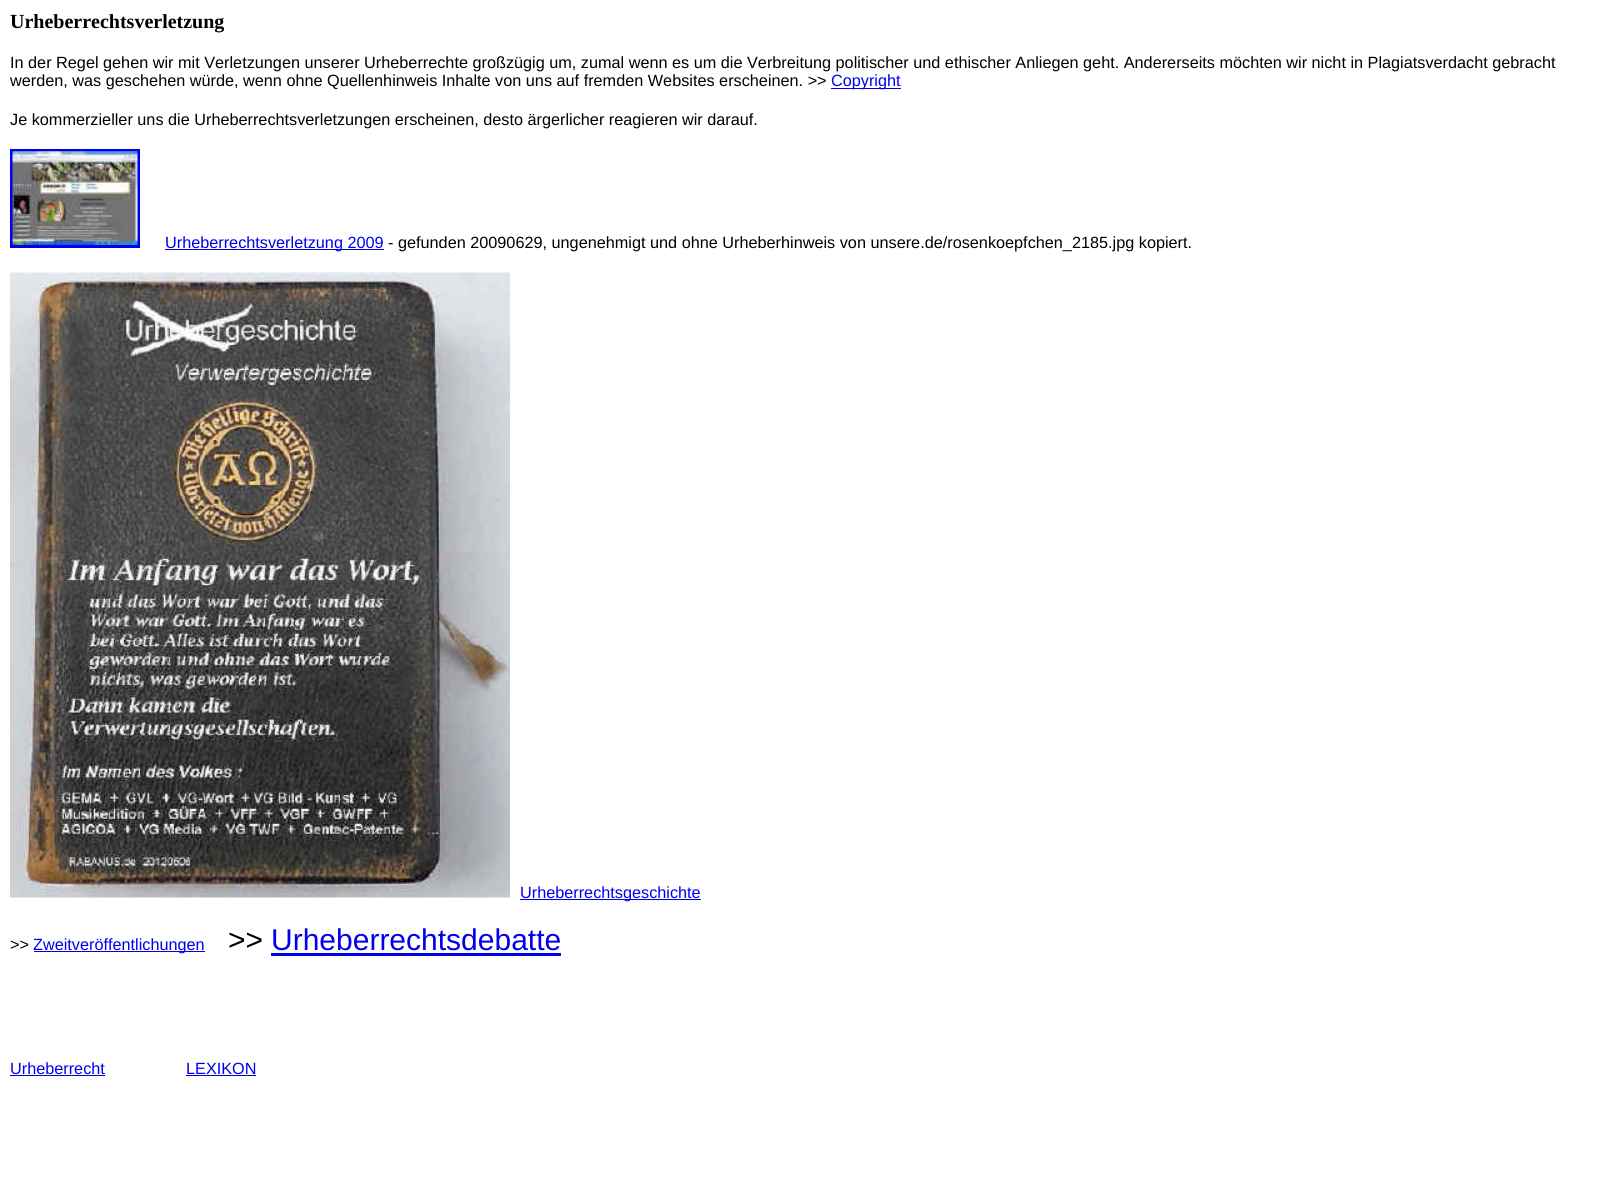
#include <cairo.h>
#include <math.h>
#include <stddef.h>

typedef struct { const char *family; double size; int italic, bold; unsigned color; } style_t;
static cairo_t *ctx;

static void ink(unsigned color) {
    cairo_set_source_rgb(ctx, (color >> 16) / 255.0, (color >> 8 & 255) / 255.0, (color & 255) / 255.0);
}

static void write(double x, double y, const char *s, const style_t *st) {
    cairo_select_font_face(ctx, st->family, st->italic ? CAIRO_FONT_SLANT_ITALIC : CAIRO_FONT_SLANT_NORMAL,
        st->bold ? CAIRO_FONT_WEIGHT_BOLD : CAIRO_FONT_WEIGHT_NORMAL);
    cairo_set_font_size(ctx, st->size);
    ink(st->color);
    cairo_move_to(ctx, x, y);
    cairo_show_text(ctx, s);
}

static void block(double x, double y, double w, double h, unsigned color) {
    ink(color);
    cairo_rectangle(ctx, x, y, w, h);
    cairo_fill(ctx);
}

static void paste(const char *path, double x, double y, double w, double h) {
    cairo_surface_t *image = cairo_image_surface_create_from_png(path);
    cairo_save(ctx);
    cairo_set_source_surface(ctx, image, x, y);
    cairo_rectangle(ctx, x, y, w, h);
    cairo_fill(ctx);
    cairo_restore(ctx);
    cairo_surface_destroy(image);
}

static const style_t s1 = {"Liberation Serif", 20, 0, 1, 0x000000};
static const style_t s2 = {"Liberation Sans", 16.25, 0, 0, 0x000000};
static const style_t s3 = {"Liberation Sans", 16.25, 0, 0, 0x0000ee};
static const style_t s4 = {"Liberation Sans", 30, 0, 0, 0x000000};
static const style_t s5 = {"Liberation Sans", 30, 0, 0, 0x0000ee};

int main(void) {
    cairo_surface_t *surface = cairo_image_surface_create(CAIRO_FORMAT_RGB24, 1602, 1179);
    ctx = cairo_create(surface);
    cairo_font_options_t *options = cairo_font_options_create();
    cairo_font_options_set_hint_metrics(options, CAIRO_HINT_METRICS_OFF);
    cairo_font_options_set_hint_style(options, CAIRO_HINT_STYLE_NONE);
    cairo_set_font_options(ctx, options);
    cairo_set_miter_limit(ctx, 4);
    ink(0xffffff);
    cairo_paint(ctx);
    write(10, 28, "Urheberrechtsverletzung", &s1);
    write(10, 68, "In der Regel gehen wir mit Verletzungen unserer Urheberrechte großzügig um, zumal wenn es um die Verbreitung politischer und ethischer Anliegen geht. Andererseits möchten wir nicht in Plagiatsverdacht gebracht", &s2);
    write(10, 86, "werden, was geschehen würde, wenn ohne Quellenhinweis Inhalte von uns auf fremden Websites erscheinen. >>", &s2);
    block(831, 88, 70, 1, 0x0000ee);
    write(831, 86, "Copyright", &s3);
    write(10, 125, "Je kommerzieller uns die Urheberrechtsverletzungen erscheinen, desto ärgerlicher reagieren wir darauf.", &s2);
    cairo_rectangle(ctx, 11.5, 150.5, 127, 96);
    ink(0x0000ee);
    cairo_set_line_width(ctx, 3);
    cairo_stroke(ctx);
    paste("pic1.png", 12, 151, 126, 94);
    block(165, 249, 219, 1, 0x0000ee);
    write(165, 248, "Urheberrechtsverletzung 2009", &s3);
    write(388, 248, "- gefunden 20090629, ungenehmigt und ohne Urheberhinweis von unsere.de/rosenkoepfchen_2185.jpg kopiert.", &s2);
    paste("pic2.png", 10, 272, 500, 626);
    block(520, 899, 181, 1, 0x0000ee);
    write(520, 898, "Urheberrechtsgeschichte", &s3);
    write(10, 950, ">>", &s2);
    block(34, 951, 171, 1, 0x0000ee);
    write(33, 950, "Zweitveröffentlichungen", &s3);
    write(228, 950, ">>", &s4);
    write(271, 950, "Urheberrechtsdebatte", &s5);
    block(271, 953, 290, 3, 0x0000ee);
    write(10, 1074, "Urheberrecht", &s3);
    block(10, 1075, 95, 1, 0x0000ee);
    write(186, 1074, "LEXIKON", &s3);
    block(186, 1075, 70, 1, 0x0000ee);
    cairo_surface_write_to_png(surface, "screenshot.png");
    cairo_font_options_destroy(options);
    cairo_destroy(ctx);
    cairo_surface_destroy(surface);
    return 0;
}
